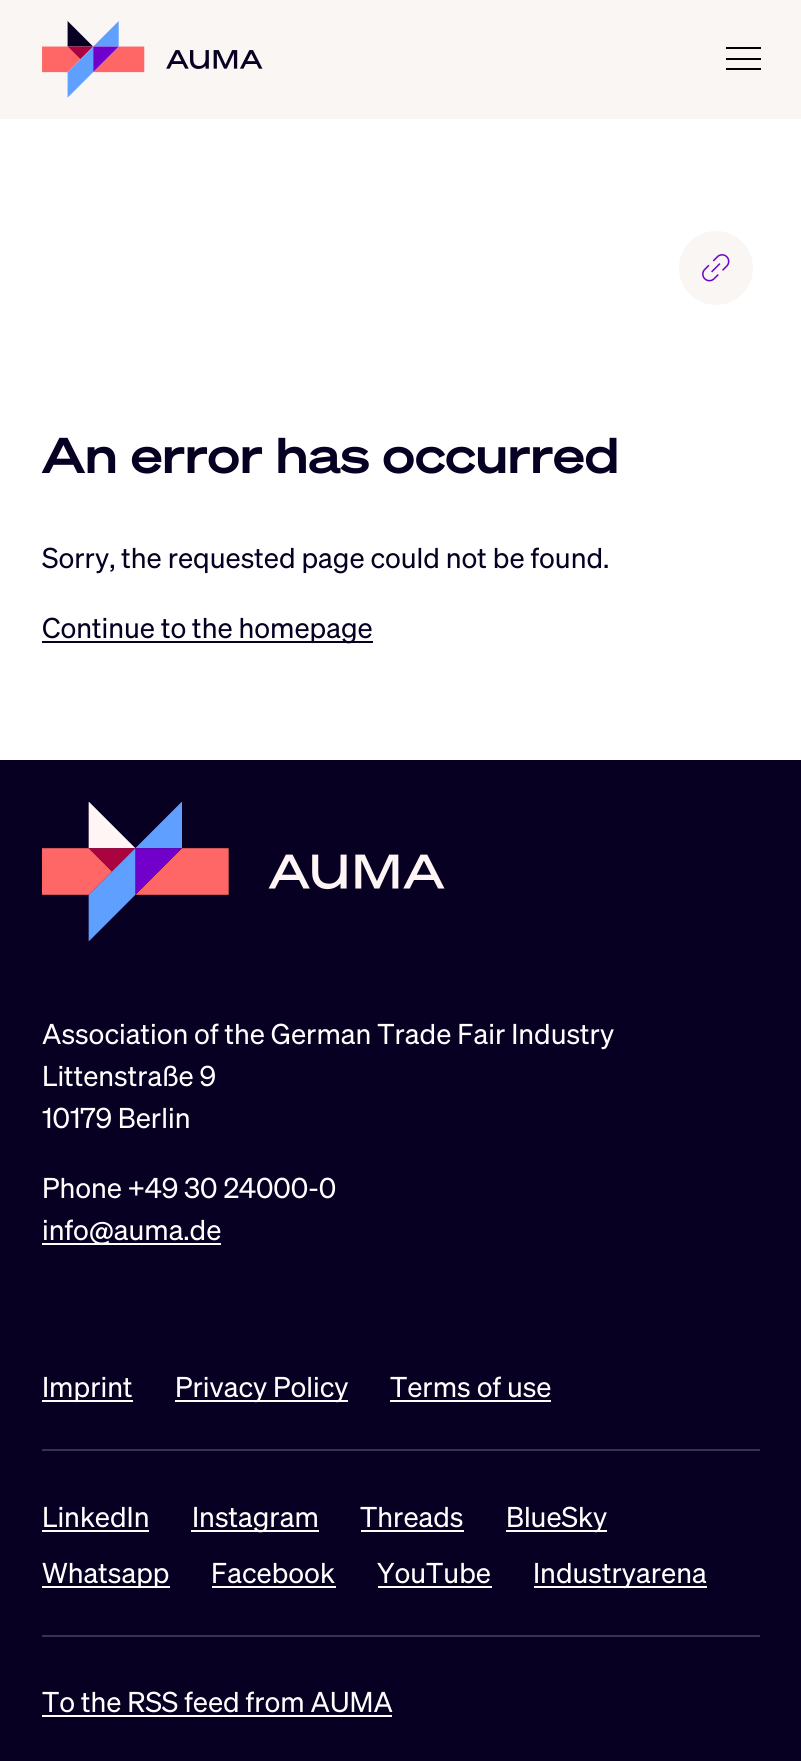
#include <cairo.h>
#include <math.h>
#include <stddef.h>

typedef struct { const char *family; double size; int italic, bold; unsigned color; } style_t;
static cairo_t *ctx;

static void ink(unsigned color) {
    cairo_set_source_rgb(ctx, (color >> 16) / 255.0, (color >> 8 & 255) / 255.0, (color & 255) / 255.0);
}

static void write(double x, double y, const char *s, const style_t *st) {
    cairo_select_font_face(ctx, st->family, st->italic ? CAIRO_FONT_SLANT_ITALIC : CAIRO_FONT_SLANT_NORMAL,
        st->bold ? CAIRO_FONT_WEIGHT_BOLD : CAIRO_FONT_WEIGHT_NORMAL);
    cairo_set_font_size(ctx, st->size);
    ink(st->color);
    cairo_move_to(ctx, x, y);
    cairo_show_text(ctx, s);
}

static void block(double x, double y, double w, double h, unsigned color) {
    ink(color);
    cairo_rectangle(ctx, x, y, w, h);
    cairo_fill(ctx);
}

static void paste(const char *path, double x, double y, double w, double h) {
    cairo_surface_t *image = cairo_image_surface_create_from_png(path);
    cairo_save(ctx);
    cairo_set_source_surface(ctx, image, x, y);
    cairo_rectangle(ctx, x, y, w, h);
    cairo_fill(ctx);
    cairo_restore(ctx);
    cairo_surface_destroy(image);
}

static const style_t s1 = {"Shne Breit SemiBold", 49, 0, 0, 0x070023};
static const style_t s2 = {"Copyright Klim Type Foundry", 28, 0, 0, 0x070023};
static const style_t s3 = {"Copyright Klim Type Foundry", 28, 0, 0, 0xffffff};

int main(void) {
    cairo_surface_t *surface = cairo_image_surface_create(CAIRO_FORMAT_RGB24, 801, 1761);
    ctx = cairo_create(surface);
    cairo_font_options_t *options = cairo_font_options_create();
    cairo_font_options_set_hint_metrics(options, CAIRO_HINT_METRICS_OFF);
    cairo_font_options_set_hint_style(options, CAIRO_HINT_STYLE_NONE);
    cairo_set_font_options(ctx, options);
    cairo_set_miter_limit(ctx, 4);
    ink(0xffffff);
    cairo_paint(ctx);
    block(0, 0, 801, 119, 0xfaf6f3);
    paste("pic1.png", 42, 21, 221, 77);
    block(726, 47, 35, 2, 0x000000);
    block(726, 58, 35, 2, 0x000000);
    block(726, 68, 35, 2, 0x000000);
    ink(0xfaf6f3);
    cairo_arc(ctx, 716, 268, 37, 0, 2 * M_PI);
    cairo_fill(ctx);
    paste("pic2.png", 702, 254, 28, 28);
    write(42, 473, "An error has occurred", &s1);
    write(42, 568, "Sorry, the requested page could not be found.", &s2);
    block(42, 641, 331, 2, 0x070023);
    write(42, 638, "Continue to the homepage", &s2);
    block(0, 760, 801, 1001, 0x070023);
    paste("pic3.png", 42, 802, 403, 140);
    write(42, 1044, "Association of the German Trade Fair Industry", &s3);
    write(42, 1086, "Littenstraße 9", &s3);
    write(42, 1128, "10179 Berlin", &s3);
    write(42, 1198, "Phone +49 30 24000-0", &s3);
    block(42, 1243, 179, 2, 0xffffff);
    write(42, 1240, "info@auma.de", &s3);
    block(42, 1400, 91, 2, 0xffffff);
    write(42, 1397, "Imprint", &s3);
    block(175, 1400, 173, 2, 0xffffff);
    write(175, 1397, "Privacy Policy", &s3);
    write(390, 1397, "Terms of use", &s3);
    block(390, 1400, 161, 2, 0xffffff);
    block(42, 1449, 718, 2, 0x39334f);
    write(42, 1527, "LinkedIn", &s3);
    block(42, 1530, 107, 2, 0xffffff);
    block(191, 1530, 128, 2, 0xffffff);
    write(192, 1527, "Instagram", &s3);
    write(360, 1527, "Threads", &s3);
    block(361, 1530, 103, 2, 0xffffff);
    block(506, 1530, 101, 2, 0xffffff);
    write(506, 1527, "BlueSky", &s3);
    block(42, 1586, 128, 2, 0xffffff);
    write(42, 1583, "Whatsapp", &s3);
    write(211, 1583, "Facebook", &s3);
    block(212, 1586, 124, 2, 0xffffff);
    write(377, 1583, "YouTube", &s3);
    block(378, 1586, 114, 2, 0xffffff);
    block(534, 1586, 173, 2, 0xffffff);
    write(533, 1583, "Industryarena", &s3);
    block(42, 1635, 718, 2, 0x39334f);
    write(42, 1712, "To the RSS feed from AUMA", &s3);
    block(42, 1715, 350, 2, 0xffffff);
    cairo_surface_write_to_png(surface, "screenshot.png");
    cairo_font_options_destroy(options);
    cairo_destroy(ctx);
    cairo_surface_destroy(surface);
    return 0;
}
